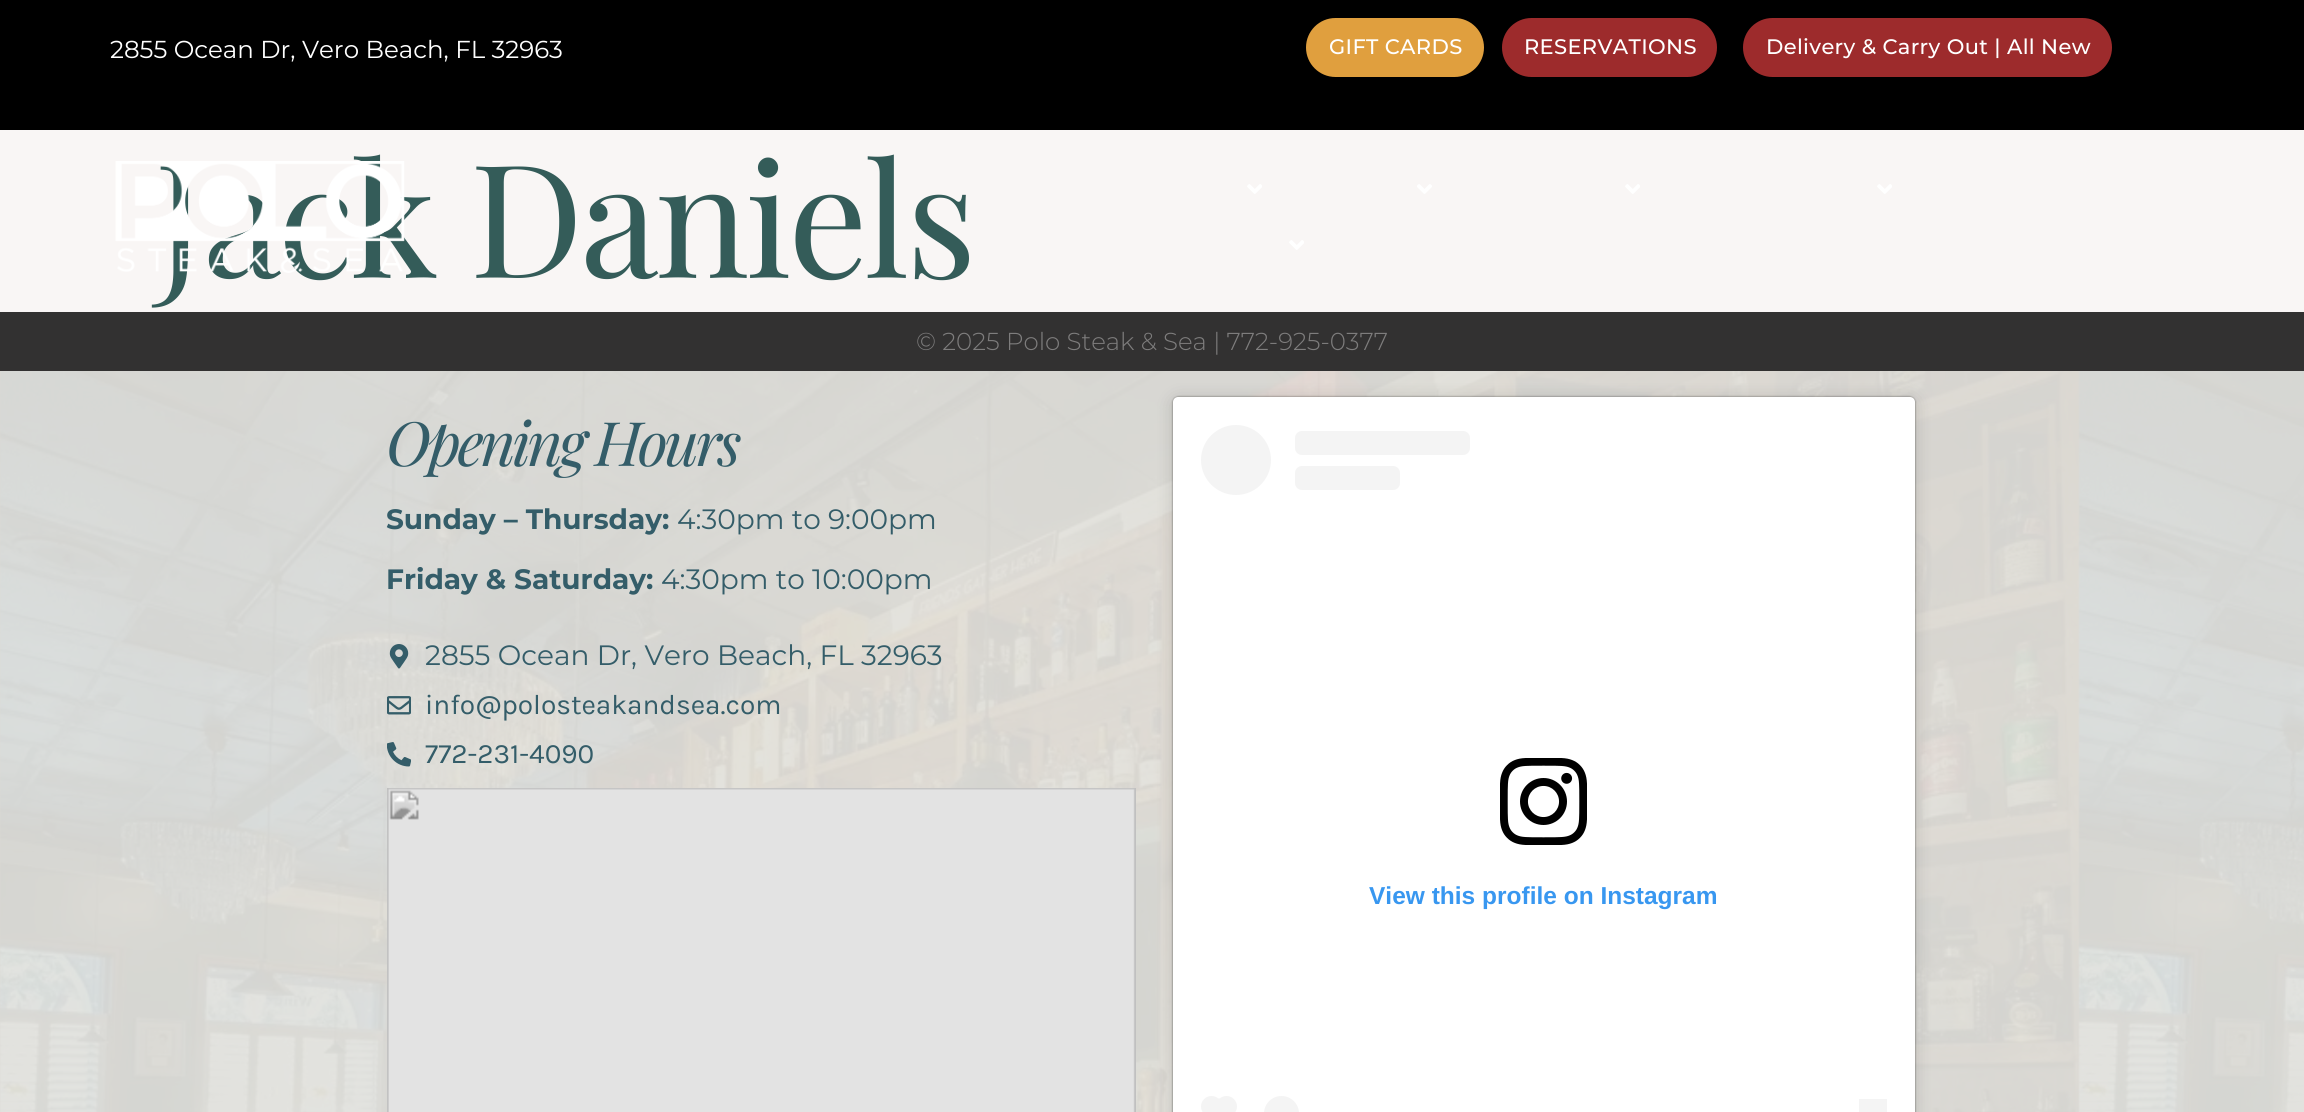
#include <cairo.h>
#include <math.h>
#include <stddef.h>

typedef struct { const char *family; double size; int italic, bold; unsigned color; } style_t;
static cairo_t *ctx;

static void ink(unsigned color) {
    cairo_set_source_rgb(ctx, (color >> 16) / 255.0, (color >> 8 & 255) / 255.0, (color & 255) / 255.0);
}

static void write(double x, double y, const char *s, const style_t *st) {
    cairo_select_font_face(ctx, st->family, st->italic ? CAIRO_FONT_SLANT_ITALIC : CAIRO_FONT_SLANT_NORMAL,
        st->bold ? CAIRO_FONT_WEIGHT_BOLD : CAIRO_FONT_WEIGHT_NORMAL);
    cairo_set_font_size(ctx, st->size);
    ink(st->color);
    cairo_move_to(ctx, x, y);
    cairo_show_text(ctx, s);
}

static void write_spaced(double x, double y, const char *s, double letter, double word) {
    cairo_move_to(ctx, x, y);
    while (*s) {
        char ch[5] = {0};
        int n = 0;
        do ch[n++] = *s++; while ((*s & 0xC0) == 0x80);
        cairo_show_text(ctx, ch);
        cairo_rel_move_to(ctx, letter + word * (*ch == ' '), 0);
    }
}

static void block(double x, double y, double w, double h, unsigned color) {
    ink(color);
    cairo_rectangle(ctx, x, y, w, h);
    cairo_fill(ctx);
}

static void round_path(double x, double y, double w, double h, double r) {
    cairo_new_sub_path(ctx);
    cairo_arc(ctx, x + w - r, y + h - r, r, 0, M_PI / 2);
    cairo_arc(ctx, x + r, y + h - r, r, M_PI / 2, M_PI);
    cairo_arc(ctx, x + r, y + r, r, M_PI, 1.5 * M_PI);
    cairo_arc(ctx, x + w - r, y + r, r, 1.5 * M_PI, 2 * M_PI);
    cairo_close_path(ctx);
}

static void blur_box(double x, double y, double w, double h, double r, double blur, double alpha) {
    cairo_push_group_with_content(ctx, CAIRO_CONTENT_ALPHA);
    cairo_set_operator(ctx, CAIRO_OPERATOR_SOURCE);
    for (int i = 15; i >= -15 && fmin(w, h) + blur * i / 3 > 0; i -= 2) {
        double e = blur * i / 6;
        cairo_set_source_rgba(ctx, 0, 0, 0, alpha * erfc((i - 1) / 8.5) / 2);
        round_path(x - e, y - e, w + 2 * e, h + 2 * e, fmax(0, fmin(r + e + blur * .6, fmin(w, h) / 2 + e)));
        cairo_fill(ctx);
    }
    cairo_pattern_t *soft = cairo_pop_group(ctx);
    cairo_mask(ctx, soft);
    cairo_pattern_destroy(soft);
}

static void paste(const char *path, double x, double y, double w, double h) {
    cairo_surface_t *image = cairo_image_surface_create_from_png(path);
    cairo_save(ctx);
    cairo_set_source_surface(ctx, image, x, y);
    cairo_rectangle(ctx, x, y, w, h);
    cairo_fill(ctx);
    cairo_restore(ctx);
    cairo_surface_destroy(image);
}

static const style_t s1 = {"Montserrat", 24.5, 0, 0, 0xffffff};
static const style_t s2 = {"Montserrat Light", 24.5, 0, 0, 0x7e7d7d};
static const style_t s3 = {"Montserrat", 28, 0, 1, 0x345d69};
static const style_t s4 = {"Montserrat", 28, 0, 0, 0x345d69};
static const style_t s5 = {"Karla", 28, 0, 0, 0x345d69};
static const style_t s6 = {"Liberation Sans", 24.5, 0, 1, 0x3897f0};

int main(void) {
    cairo_surface_t *surface = cairo_image_surface_create(CAIRO_FORMAT_RGB24, 2304, 1112);
    ctx = cairo_create(surface);
    cairo_font_options_t *options = cairo_font_options_create();
    cairo_font_options_set_hint_metrics(options, CAIRO_HINT_METRICS_OFF);
    cairo_font_options_set_hint_style(options, CAIRO_HINT_STYLE_NONE);
    cairo_set_font_options(ctx, options);
    cairo_set_miter_limit(ctx, 4);
    ink(0xf9f6f5);
    cairo_paint(ctx);
    block(0, 0, 2304, 130, 0x000000);
    write(110, 58, "2855 Ocean Dr, Vero Beach, FL 32963", &s1);
    ink(0xe09f3e);
    round_path(1306, 18, 178, 59, 29.5);
    cairo_fill(ctx);
    cairo_select_font_face(ctx, "Montserrat Medium", CAIRO_FONT_SLANT_NORMAL, CAIRO_FONT_WEIGHT_NORMAL);
    cairo_set_font_size(ctx, 21);
    ink(0xffffff);
    write_spaced(1329, 54, "GIFT CARDS", 0.35, 0);
    ink(0x9d2b2c);
    round_path(1502, 18, 215, 59, 29.5);
    cairo_fill(ctx);
    ink(0xffffff);
    write_spaced(1524, 54, "RESERVATIONS", 0.35, 0);
    ink(0x9d2b2c);
    round_path(1743, 18, 369, 59, 29.5);
    cairo_fill(ctx);
    ink(0xffffff);
    write_spaced(1766, 54, "Delivery & Carry Out | All New", 0.35, 0);
    cairo_select_font_face(ctx, "Playfair Display", CAIRO_FONT_SLANT_NORMAL, CAIRO_FONT_WEIGHT_NORMAL);
    cairo_set_font_size(ctx, 157.5);
    ink(0x345c59);
    write_spaced(155, 278, "Jack Daniels", -3.5, 0);
    paste("pic1.png", 115, 161, 290, 112);
    paste("pic2.png", 1247, 184, 15, 10);
    paste("pic3.png", 1417, 184, 15, 10);
    paste("pic2.png", 1625, 184, 15, 10);
    paste("pic2.png", 1877, 184, 15, 10);
    paste("pic2.png", 1289, 240, 15, 10);
    block(0, 312, 2304, 59, 0x323131);
    write(916, 350, "© 2025 Polo Steak & Sea | 772-925-0377", &s2);
    block(0, 371, 2304, 741, 0xe1e1dd);
    paste("pic4.png", 0, 371, 2304, 741);
    cairo_select_font_face(ctx, "Playfair Display", CAIRO_FONT_SLANT_ITALIC, CAIRO_FONT_WEIGHT_NORMAL);
    cairo_set_font_size(ctx, 61.25);
    ink(0x345d69);
    write_spaced(386, 466, "Opening Hours", -3.5, 0);
    write(386, 529, "Sunday – Thursday:", &s3);
    write(677, 529, "4:30pm to 9:00pm", &s4);
    write(386, 589, "Friday & Saturday:", &s3);
    write(661, 589, "4:30pm to 10:00pm", &s4);
    paste("pic5.png", 389, 644, 20, 25);
    write(425, 665, "2855 Ocean Dr, Vero Beach, FL 32963", &s4);
    paste("pic6.png", 387, 696, 24, 19);
    write(425, 714, "info@polosteakandsea.com", &s5);
    paste("pic7.png", 387, 742, 24, 25);
    write(425, 763, "772-231-4090", &s5);
    paste("pic8.png", 387, 788, 749, 324);
    ink(0x000000);
    blur_box(1173, 399, 742, 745, 5, 9, 0.15);
    blur_box(1173, 397, 742, 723, 5, 1, 0.5);
    ink(0xffffff);
    round_path(1173, 397, 742, 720, 5);
    cairo_fill(ctx);
    ink(0xf4f4f4);
    cairo_arc(ctx, 1236, 460, 35, 0, 2 * M_PI);
    cairo_fill(ctx);
    round_path(1295, 431, 175, 24, 7);
    cairo_fill(ctx);
    round_path(1295, 466, 105, 24, 7);
    cairo_fill(ctx);
    paste("pic9.png", 1500, 758, 87, 87);
    write(1369, 904, "View this profile on Instagram", &s6);
    ink(0xf4f4f4);
    cairo_new_path(ctx);
    cairo_arc(ctx, 1211.5, 1106.5, 10.5, 0, 2 * M_PI);
    cairo_fill(ctx);
    cairo_new_path(ctx);
    cairo_move_to(ctx, 1203.5, 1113.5);
    cairo_line_to(ctx, 1219, 1098);
    cairo_line_to(ctx, 1234.5, 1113.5);
    cairo_line_to(ctx, 1219, 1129);
    cairo_close_path(ctx);
    cairo_fill(ctx);
    cairo_arc(ctx, 1226.5, 1106.5, 10.5, 0, 2 * M_PI);
    cairo_fill(ctx);
    round_path(1264, 1096, 35, 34, 17.5);
    cairo_fill(ctx);
    block(1859, 1099, 28, 13, 0xf4f4f4);
    cairo_surface_write_to_png(surface, "screenshot.png");
    cairo_font_options_destroy(options);
    cairo_destroy(ctx);
    cairo_surface_destroy(surface);
    return 0;
}
